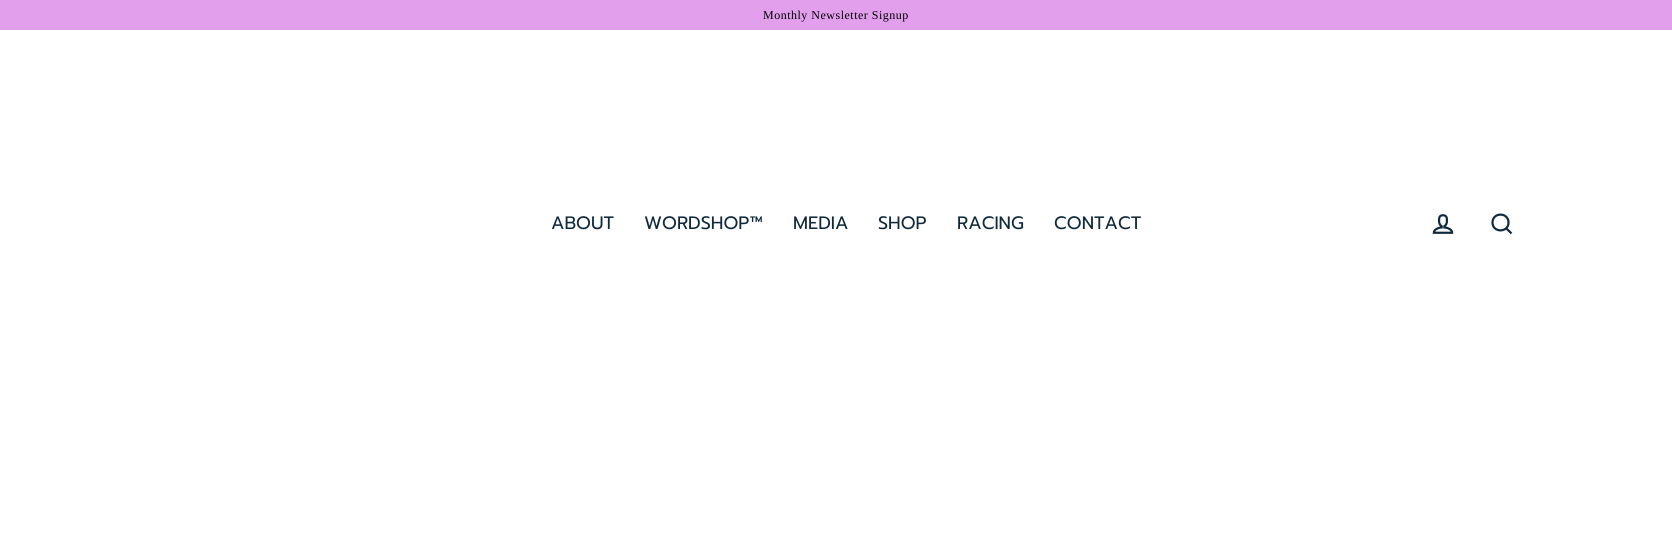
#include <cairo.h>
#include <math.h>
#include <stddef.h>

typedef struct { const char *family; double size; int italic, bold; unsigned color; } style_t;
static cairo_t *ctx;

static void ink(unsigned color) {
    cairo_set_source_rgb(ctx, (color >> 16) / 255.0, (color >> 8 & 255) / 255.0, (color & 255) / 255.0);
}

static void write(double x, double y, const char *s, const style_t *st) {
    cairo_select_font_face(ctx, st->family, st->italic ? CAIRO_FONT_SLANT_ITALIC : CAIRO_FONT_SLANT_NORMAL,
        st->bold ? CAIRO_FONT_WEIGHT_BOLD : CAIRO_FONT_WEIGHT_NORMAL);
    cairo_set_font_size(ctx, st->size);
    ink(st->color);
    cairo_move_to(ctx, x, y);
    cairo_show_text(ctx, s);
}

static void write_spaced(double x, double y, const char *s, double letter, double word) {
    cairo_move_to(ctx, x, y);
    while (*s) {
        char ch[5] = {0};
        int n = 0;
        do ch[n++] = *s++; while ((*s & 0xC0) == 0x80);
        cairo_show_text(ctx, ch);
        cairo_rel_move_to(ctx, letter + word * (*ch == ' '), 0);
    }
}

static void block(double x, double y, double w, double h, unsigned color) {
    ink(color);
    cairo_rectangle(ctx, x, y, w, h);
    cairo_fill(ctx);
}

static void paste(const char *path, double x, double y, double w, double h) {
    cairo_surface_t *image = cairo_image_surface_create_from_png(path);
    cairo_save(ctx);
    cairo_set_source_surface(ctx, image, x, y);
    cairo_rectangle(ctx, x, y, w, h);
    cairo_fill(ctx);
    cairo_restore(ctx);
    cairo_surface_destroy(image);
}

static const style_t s1 = {"Prompt", 18, 0, 0, 0x102a3d};

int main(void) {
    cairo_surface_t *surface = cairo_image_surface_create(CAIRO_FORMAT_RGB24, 1672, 535);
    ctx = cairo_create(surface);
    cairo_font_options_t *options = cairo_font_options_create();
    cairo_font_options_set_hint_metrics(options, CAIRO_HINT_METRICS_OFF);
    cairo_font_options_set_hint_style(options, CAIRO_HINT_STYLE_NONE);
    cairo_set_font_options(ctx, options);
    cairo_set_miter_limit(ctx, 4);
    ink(0xffffff);
    cairo_paint(ctx);
    block(0, 0, 1672, 30, 0xe19fec);
    cairo_select_font_face(ctx, "Liberation Serif", CAIRO_FONT_SLANT_NORMAL, CAIRO_FONT_WEIGHT_NORMAL);
    cairo_set_font_size(ctx, 12);
    ink(0x000000);
    write_spaced(763, 19, "Monthly Newsletter Signup", 0.5, 0);
    write(551, 229, "ABOUT", &s1);
    write(644, 229, "WORDSHOP™", &s1);
    write(793, 229, "MEDIA", &s1);
    write(878, 229, "SHOP", &s1);
    write(957, 229, "RACING", &s1);
    write(1054, 229, "CONTACT", &s1);
    paste("pic1.png", 1432, 214, 22, 20);
    cairo_new_path(ctx);
    cairo_move_to(ctx, 1508.5, 222.5);
    cairo_curve_to(ctx, 1508.5, 233, 1492.5, 233, 1492.5, 222.5);
    cairo_curve_to(ctx, 1492.5, 212, 1508.5, 212, 1508.5, 222.5);
    cairo_close_path(ctx);
    cairo_move_to(ctx, 1511.5, 233.5);
    cairo_line_to(ctx, 1506.5, 228.5);
    cairo_set_line_width(ctx, 2.2);
    cairo_stroke(ctx);
    cairo_surface_write_to_png(surface, "screenshot.png");
    cairo_font_options_destroy(options);
    cairo_destroy(ctx);
    cairo_surface_destroy(surface);
    return 0;
}
